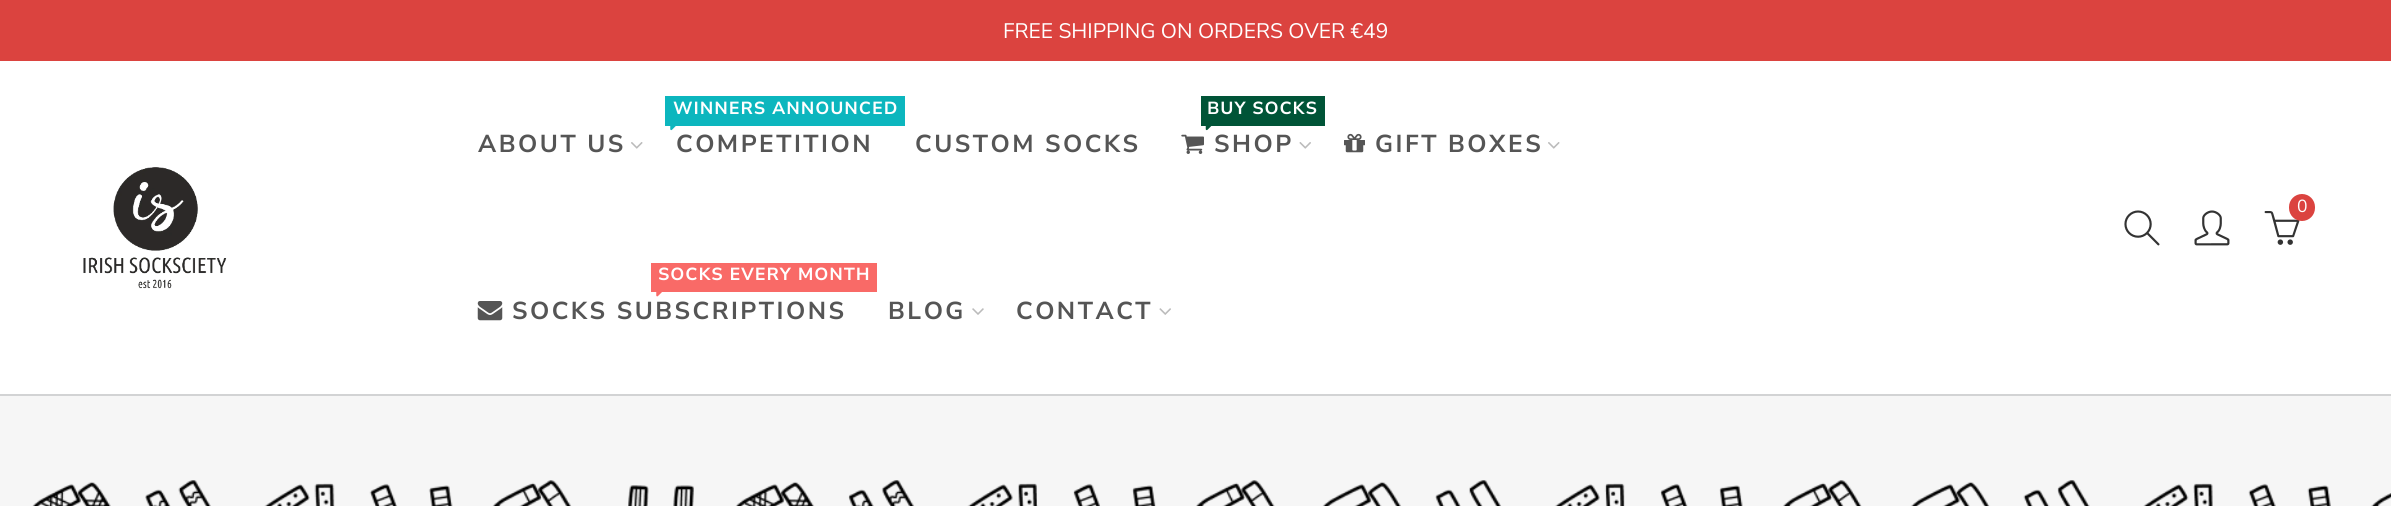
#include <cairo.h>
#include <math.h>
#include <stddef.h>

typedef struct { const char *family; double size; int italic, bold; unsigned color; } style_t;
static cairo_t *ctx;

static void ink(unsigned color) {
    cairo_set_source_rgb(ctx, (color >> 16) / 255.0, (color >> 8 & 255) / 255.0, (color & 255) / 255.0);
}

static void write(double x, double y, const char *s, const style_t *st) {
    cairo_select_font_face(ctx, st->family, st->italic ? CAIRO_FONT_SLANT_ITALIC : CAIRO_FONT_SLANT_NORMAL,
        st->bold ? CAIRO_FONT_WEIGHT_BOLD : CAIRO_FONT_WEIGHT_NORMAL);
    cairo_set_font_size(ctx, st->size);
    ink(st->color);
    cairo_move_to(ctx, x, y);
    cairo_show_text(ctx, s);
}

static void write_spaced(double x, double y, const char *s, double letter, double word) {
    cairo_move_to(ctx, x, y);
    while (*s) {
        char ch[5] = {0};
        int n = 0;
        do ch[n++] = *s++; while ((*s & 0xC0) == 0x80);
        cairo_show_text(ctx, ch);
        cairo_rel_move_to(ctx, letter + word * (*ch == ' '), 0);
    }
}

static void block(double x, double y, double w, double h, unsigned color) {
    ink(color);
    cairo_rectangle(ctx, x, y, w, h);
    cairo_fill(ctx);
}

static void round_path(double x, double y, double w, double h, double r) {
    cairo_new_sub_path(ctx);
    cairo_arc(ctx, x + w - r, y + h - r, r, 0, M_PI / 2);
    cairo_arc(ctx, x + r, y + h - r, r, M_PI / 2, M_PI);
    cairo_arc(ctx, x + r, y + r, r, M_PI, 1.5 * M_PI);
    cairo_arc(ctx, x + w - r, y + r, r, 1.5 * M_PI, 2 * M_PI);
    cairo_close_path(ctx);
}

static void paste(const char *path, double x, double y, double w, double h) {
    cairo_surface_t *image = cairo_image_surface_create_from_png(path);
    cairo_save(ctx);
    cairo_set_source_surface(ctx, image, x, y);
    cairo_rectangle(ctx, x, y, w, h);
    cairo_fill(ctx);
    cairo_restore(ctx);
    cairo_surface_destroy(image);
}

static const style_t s1 = {"Nunito Sans", 21, 0, 0, 0xffffff};
static const style_t s2 = {"Nunito Sans", 17.5, 0, 0, 0xffffff};

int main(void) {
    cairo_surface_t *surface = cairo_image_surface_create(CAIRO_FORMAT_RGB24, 2391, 506);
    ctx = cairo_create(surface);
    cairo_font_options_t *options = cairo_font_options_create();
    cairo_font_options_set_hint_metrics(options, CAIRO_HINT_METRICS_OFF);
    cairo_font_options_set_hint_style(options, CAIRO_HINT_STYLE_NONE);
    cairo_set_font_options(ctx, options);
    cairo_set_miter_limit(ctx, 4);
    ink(0xffffff);
    cairo_paint(ctx);
    block(0, 0, 2391, 61, 0xdb433f);
    write(1003, 38, "FREE SHIPPING ON ORDERS OVER €49", &s1);
    paste("pic1.png", 83, 167, 144, 122);
    cairo_select_font_face(ctx, "Nunito Sans", CAIRO_FONT_SLANT_NORMAL, CAIRO_FONT_WEIGHT_BOLD);
    cairo_set_font_size(ctx, 24.5);
    ink(0x555555);
    write_spaced(478, 152, "ABOUT US", 2.5, 0);
    paste("pic2.png", 631, 142, 12, 7);
    block(665, 96, 240, 30, 0x0cb6be);
    cairo_select_font_face(ctx, "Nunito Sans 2", CAIRO_FONT_SLANT_NORMAL, CAIRO_FONT_WEIGHT_BOLD);
    cairo_set_font_size(ctx, 17.5);
    ink(0xffffff);
    write_spaced(673, 114, "WINNERS ANNOUNCED", 0.9, 0);
    paste("pic3.png", 670, 126, 6, 5);
    cairo_select_font_face(ctx, "Nunito Sans", CAIRO_FONT_SLANT_NORMAL, CAIRO_FONT_WEIGHT_BOLD);
    cairo_set_font_size(ctx, 24.5);
    ink(0x555555);
    write_spaced(676, 152, "COMPETITION", 2.5, 0);
    write_spaced(915, 152, "CUSTOM SOCKS", 2.5, 0);
    block(1201, 96, 124, 30, 0x005437);
    cairo_select_font_face(ctx, "Nunito Sans 2", CAIRO_FONT_SLANT_NORMAL, CAIRO_FONT_WEIGHT_BOLD);
    cairo_set_font_size(ctx, 17.5);
    ink(0xffffff);
    write_spaced(1207, 114, "BUY SOCKS", 0.9, 0);
    paste("pic4.png", 1205, 126, 7, 5);
    paste("pic5.png", 1181, 134, 23, 20);
    cairo_select_font_face(ctx, "Nunito Sans", CAIRO_FONT_SLANT_NORMAL, CAIRO_FONT_WEIGHT_BOLD);
    cairo_set_font_size(ctx, 24.5);
    ink(0x555555);
    write_spaced(1214, 152, "SHOP", 2.5, 0);
    paste("pic6.png", 1299, 142, 12, 7);
    paste("pic7.png", 1344, 133, 21, 20);
    write_spaced(1375, 152, "GIFT BOXES", 2.5, 0);
    paste("pic2.png", 1548, 142, 12, 7);
    block(651, 263, 226, 29, 0xf96a67);
    cairo_select_font_face(ctx, "Nunito Sans 2", CAIRO_FONT_SLANT_NORMAL, CAIRO_FONT_WEIGHT_BOLD);
    cairo_set_font_size(ctx, 17.5);
    ink(0xffffff);
    write_spaced(658, 280, "SOCKS EVERY MONTH", 0.9, 0);
    paste("pic8.png", 656, 292, 6, 5);
    paste("pic9.png", 477, 301, 26, 20);
    cairo_select_font_face(ctx, "Nunito Sans", CAIRO_FONT_SLANT_NORMAL, CAIRO_FONT_WEIGHT_BOLD);
    cairo_set_font_size(ctx, 24.5);
    ink(0x555555);
    write_spaced(512, 319, "SOCKS SUBSCRIPTIONS", 2.5, 0);
    write_spaced(888, 319, "BLOG", 2.5, 0);
    paste("pic10.png", 972, 308, 12, 7);
    write_spaced(1016, 319, "CONTACT", 2.5, 0);
    paste("pic11.png", 1159, 308, 12, 7);
    paste("pic12.png", 2264, 211, 36, 34);
    ink(0xdb433f);
    round_path(2289, 194, 26, 27, 13);
    cairo_fill(ctx);
    write(2297, 212, "0", &s2);
    paste("pic13.png", 2124, 210, 36, 36);
    paste("pic14.png", 2194, 210, 36, 36);
    block(0, 396, 2391, 110, 0xf6f6f6);
    paste("pic15.png", 32, 480, 2359, 26);
    block(0, 394, 2391, 2, 0xd2d3d4);
    cairo_surface_write_to_png(surface, "screenshot.png");
    cairo_font_options_destroy(options);
    cairo_destroy(ctx);
    cairo_surface_destroy(surface);
    return 0;
}
